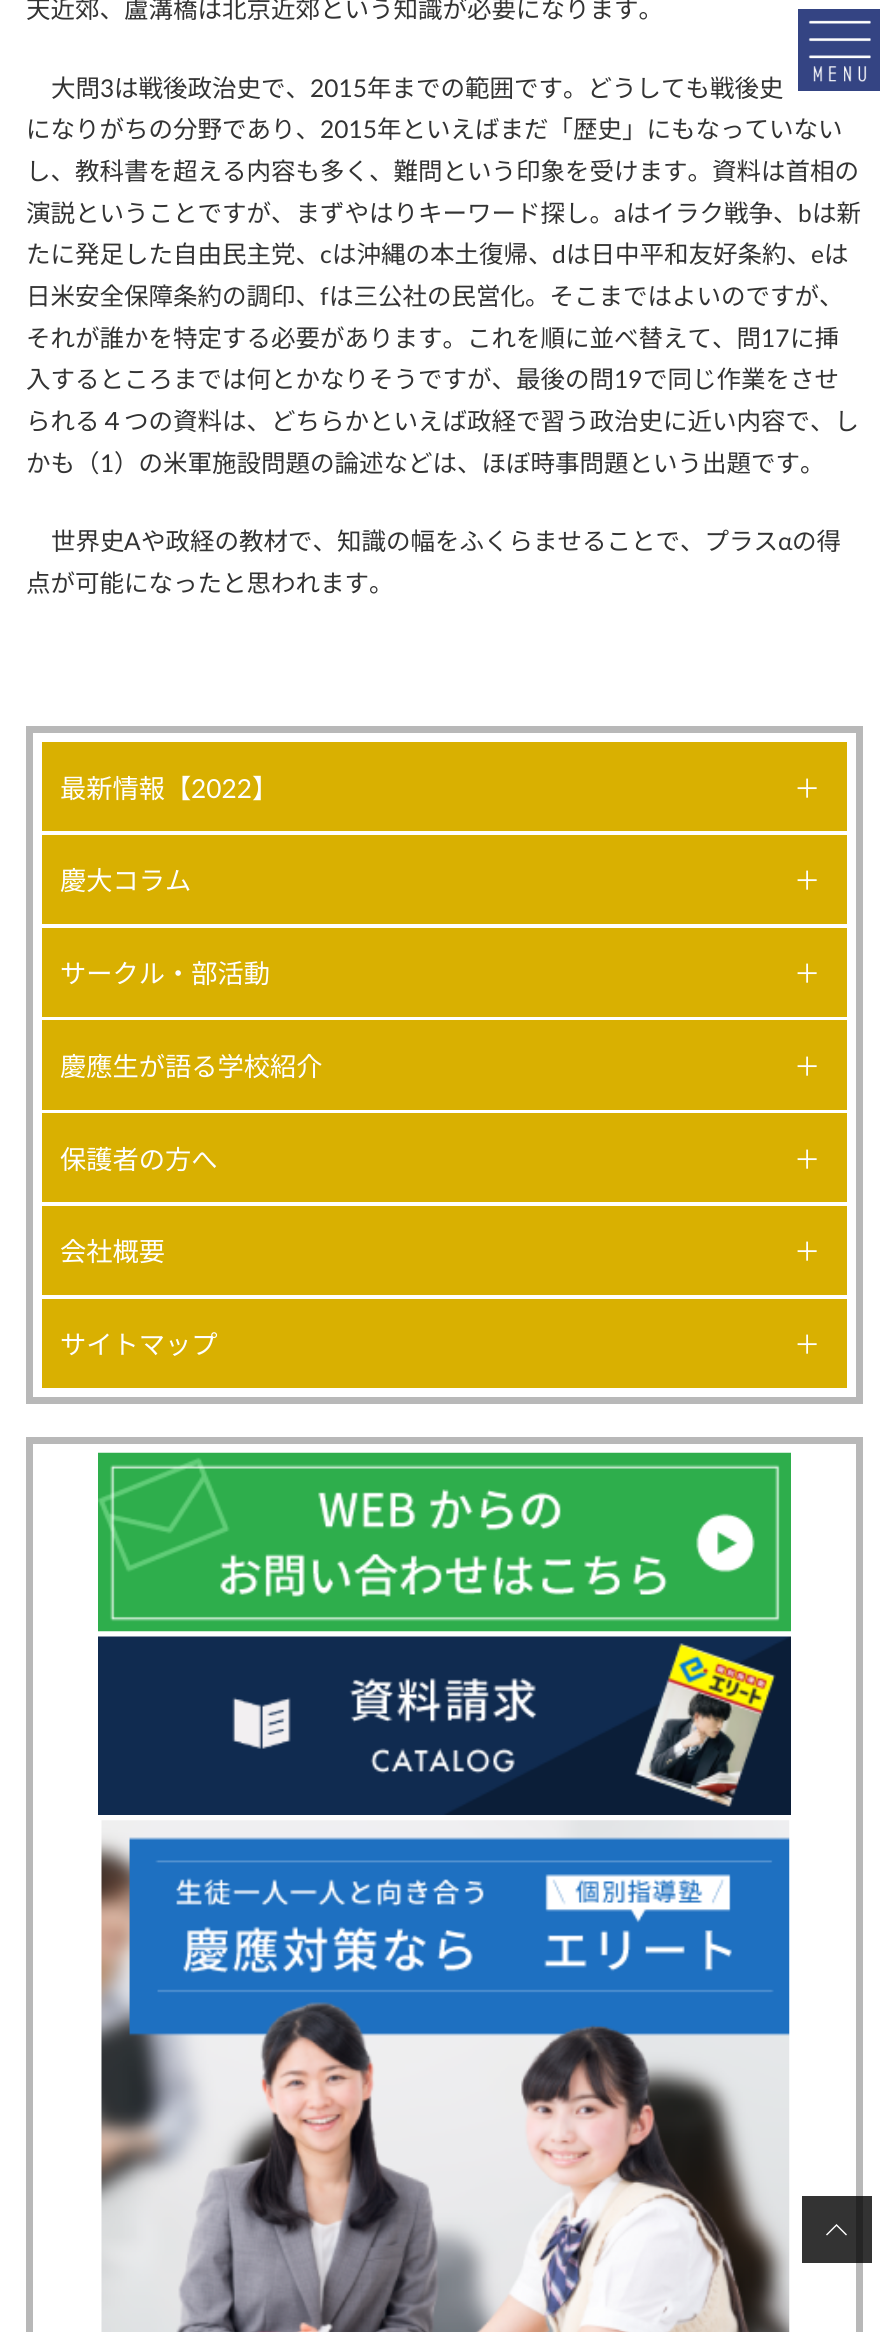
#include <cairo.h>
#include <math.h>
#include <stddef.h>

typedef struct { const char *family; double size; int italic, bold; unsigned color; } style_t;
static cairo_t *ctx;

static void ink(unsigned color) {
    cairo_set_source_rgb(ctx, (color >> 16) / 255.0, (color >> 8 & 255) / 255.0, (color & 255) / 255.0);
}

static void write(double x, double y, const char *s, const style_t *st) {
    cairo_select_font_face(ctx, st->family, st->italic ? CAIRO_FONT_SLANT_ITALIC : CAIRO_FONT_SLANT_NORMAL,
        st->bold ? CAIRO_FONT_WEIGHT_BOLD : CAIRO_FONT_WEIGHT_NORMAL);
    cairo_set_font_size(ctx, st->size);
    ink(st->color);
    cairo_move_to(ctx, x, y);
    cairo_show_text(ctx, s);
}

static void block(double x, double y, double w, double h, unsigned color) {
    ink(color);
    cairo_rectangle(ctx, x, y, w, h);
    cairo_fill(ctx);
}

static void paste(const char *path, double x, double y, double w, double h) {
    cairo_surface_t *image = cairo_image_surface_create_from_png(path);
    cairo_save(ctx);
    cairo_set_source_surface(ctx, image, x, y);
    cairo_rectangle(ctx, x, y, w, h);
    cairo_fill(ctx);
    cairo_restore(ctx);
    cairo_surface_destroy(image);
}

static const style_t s1 = {"Noto Sans JP", 24.5, 0, 0, 0x333333};
static const style_t s2 = {"Lato", 24.5, 0, 0, 0x333333};
static const style_t s3 = {"Noto Sans JP", 26.25, 0, 0, 0xffffff};
static const style_t s4 = {"Lato", 26.25, 0, 0, 0xffffff};

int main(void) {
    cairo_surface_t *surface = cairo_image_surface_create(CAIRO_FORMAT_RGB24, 888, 2332);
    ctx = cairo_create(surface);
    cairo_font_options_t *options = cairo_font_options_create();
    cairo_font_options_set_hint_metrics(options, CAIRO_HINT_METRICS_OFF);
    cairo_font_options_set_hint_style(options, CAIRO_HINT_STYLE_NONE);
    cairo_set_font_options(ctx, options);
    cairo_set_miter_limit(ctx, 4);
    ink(0xffffff);
    cairo_paint(ctx);
    write(26, 18, "天近郊、盧溝橋は北京近郊という知識が必要になります。", &s1);
    write(51, 97, "大問", &s1);
    write(100, 97, "3", &s2);
    write(114, 97, "は戦後政治史で、", &s1);
    write(310, 97, "2015", &s2);
    write(367, 97, "年までの範囲です。どうしても戦後史", &s1);
    write(26, 138, "になりがちの分野であり、", &s1);
    write(320, 138, "2015", &s2);
    write(377, 138, "年といえばまだ「歴史」にもなっていない", &s1);
    write(26, 180, "し、教科書を超える内容も多く、難問という印象を受けます。資料は首相の", &s1);
    write(26, 222, "演説ということですが、まずやはりキーワード探し。", &s1);
    write(614, 222, "a", &s2);
    write(626, 222, "はイラク戦争、", &s1);
    write(798, 222, "b", &s2);
    write(812, 222, "は新", &s1);
    write(26, 263, "たに発足した自由民主党、", &s1);
    write(320, 263, "c", &s2);
    write(332, 263, "は沖縄の本土復帰、", &s1);
    write(552, 263, "d", &s2);
    write(566, 263, "は日中平和友好条約、", &s1);
    write(811, 263, "e", &s2);
    write(824, 263, "は", &s1);
    write(26, 305, "日米安全保障条約の調印、", &s1);
    write(320, 305, "f", &s2);
    write(329, 305, "は三公社の民営化。そこまではよいのですが、", &s1);
    write(26, 347, "それが誰かを特定する必要があります。これを順に並べ替えて、問", &s1);
    write(761, 347, "17", &s2);
    write(790, 347, "に挿", &s1);
    write(26, 388, "入するところまでは何とかなりそうですが、最後の問", &s1);
    write(614, 388, "19", &s2);
    write(643, 388, "で同じ作業をさせ", &s1);
    write(26, 430, "られる４つの資料は、どちらかといえば政経で習う政治史に近い内容で、し", &s1);
    write(26, 472, "かも（", &s1);
    write(100, 472, "1", &s2);
    write(114, 472, "）の米軍施設問題の論述などは、ほぼ時事問題という出題です。", &s1);
    write(51, 550, "世界史", &s1);
    write(124, 550, "A", &s2);
    write(141, 550, "や政経の教材で、知識の幅をふくらませることで、プラス", &s1);
    write(778, 550, "α", &s2);
    write(792, 550, "の得", &s1);
    write(26, 592, "点が可能になったと思われます。", &s1);
    cairo_rectangle(ctx, 29.5, 729.5, 830, 671);
    ink(0xb8b8b8);
    cairo_set_line_width(ctx, 7);
    cairo_stroke(ctx);
    block(42, 742, 805, 89, 0xd9b001);
    write(60, 798, "最新情報【", &s3);
    write(191, 798, "2022", &s4);
    write(252, 798, "】", &s3);
    write(794, 798, "＋", &s3);
    block(42, 835, 805, 89, 0xd9b001);
    write(60, 890, "慶大コラム", &s3);
    write(794, 890, "＋", &s3);
    block(42, 928, 805, 89, 0xd9b001);
    write(60, 983, "サークル・部活動", &s3);
    write(794, 983, "＋", &s3);
    block(42, 1020, 805, 90, 0xd9b001);
    write(60, 1076, "慶應生が語る学校紹介", &s3);
    write(794, 1076, "＋", &s3);
    block(42, 1113, 805, 89, 0xd9b001);
    write(60, 1169, "保護者の方へ", &s3);
    write(794, 1169, "＋", &s3);
    block(42, 1206, 805, 89, 0xd9b001);
    write(60, 1261, "会社概要", &s3);
    write(794, 1261, "＋", &s3);
    block(42, 1299, 805, 89, 0xd9b001);
    write(60, 1354, "サイトマップ", &s3);
    write(794, 1354, "＋", &s3);
    cairo_rectangle(ctx, 29.5, 1440.5, 830, 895);
    ink(0xb8b8b8);
    cairo_stroke(ctx);
    paste("pic1.png", 98, 1452, 693, 180);
    paste("pic2.png", 98, 1636, 693, 179);
    paste("pic3.png", 101, 1820, 689, 512);
    cairo_set_source_rgba(ctx, 0.008, 0.086, 0.392, 0.8);
    cairo_rectangle(ctx, 798, 9, 82, 82);
    cairo_fill(ctx);
    paste("pic4.png", 808, 20, 63, 62);
    cairo_set_source_rgba(ctx, 0, 0, 0, 0.8);
    cairo_rectangle(ctx, 802, 2196, 70, 67);
    cairo_fill(ctx);
    ink(0xffffff);
    cairo_new_path(ctx);
    cairo_move_to(ctx, 847, 2234.5);
    cairo_line_to(ctx, 846, 2235.5);
    cairo_line_to(ctx, 836.5, 2226);
    cairo_line_to(ctx, 827, 2235.5);
    cairo_line_to(ctx, 826, 2234.5);
    cairo_line_to(ctx, 836.5, 2224);
    cairo_close_path(ctx);
    cairo_fill(ctx);
    cairo_surface_write_to_png(surface, "screenshot.png");
    cairo_font_options_destroy(options);
    cairo_destroy(ctx);
    cairo_surface_destroy(surface);
    return 0;
}
